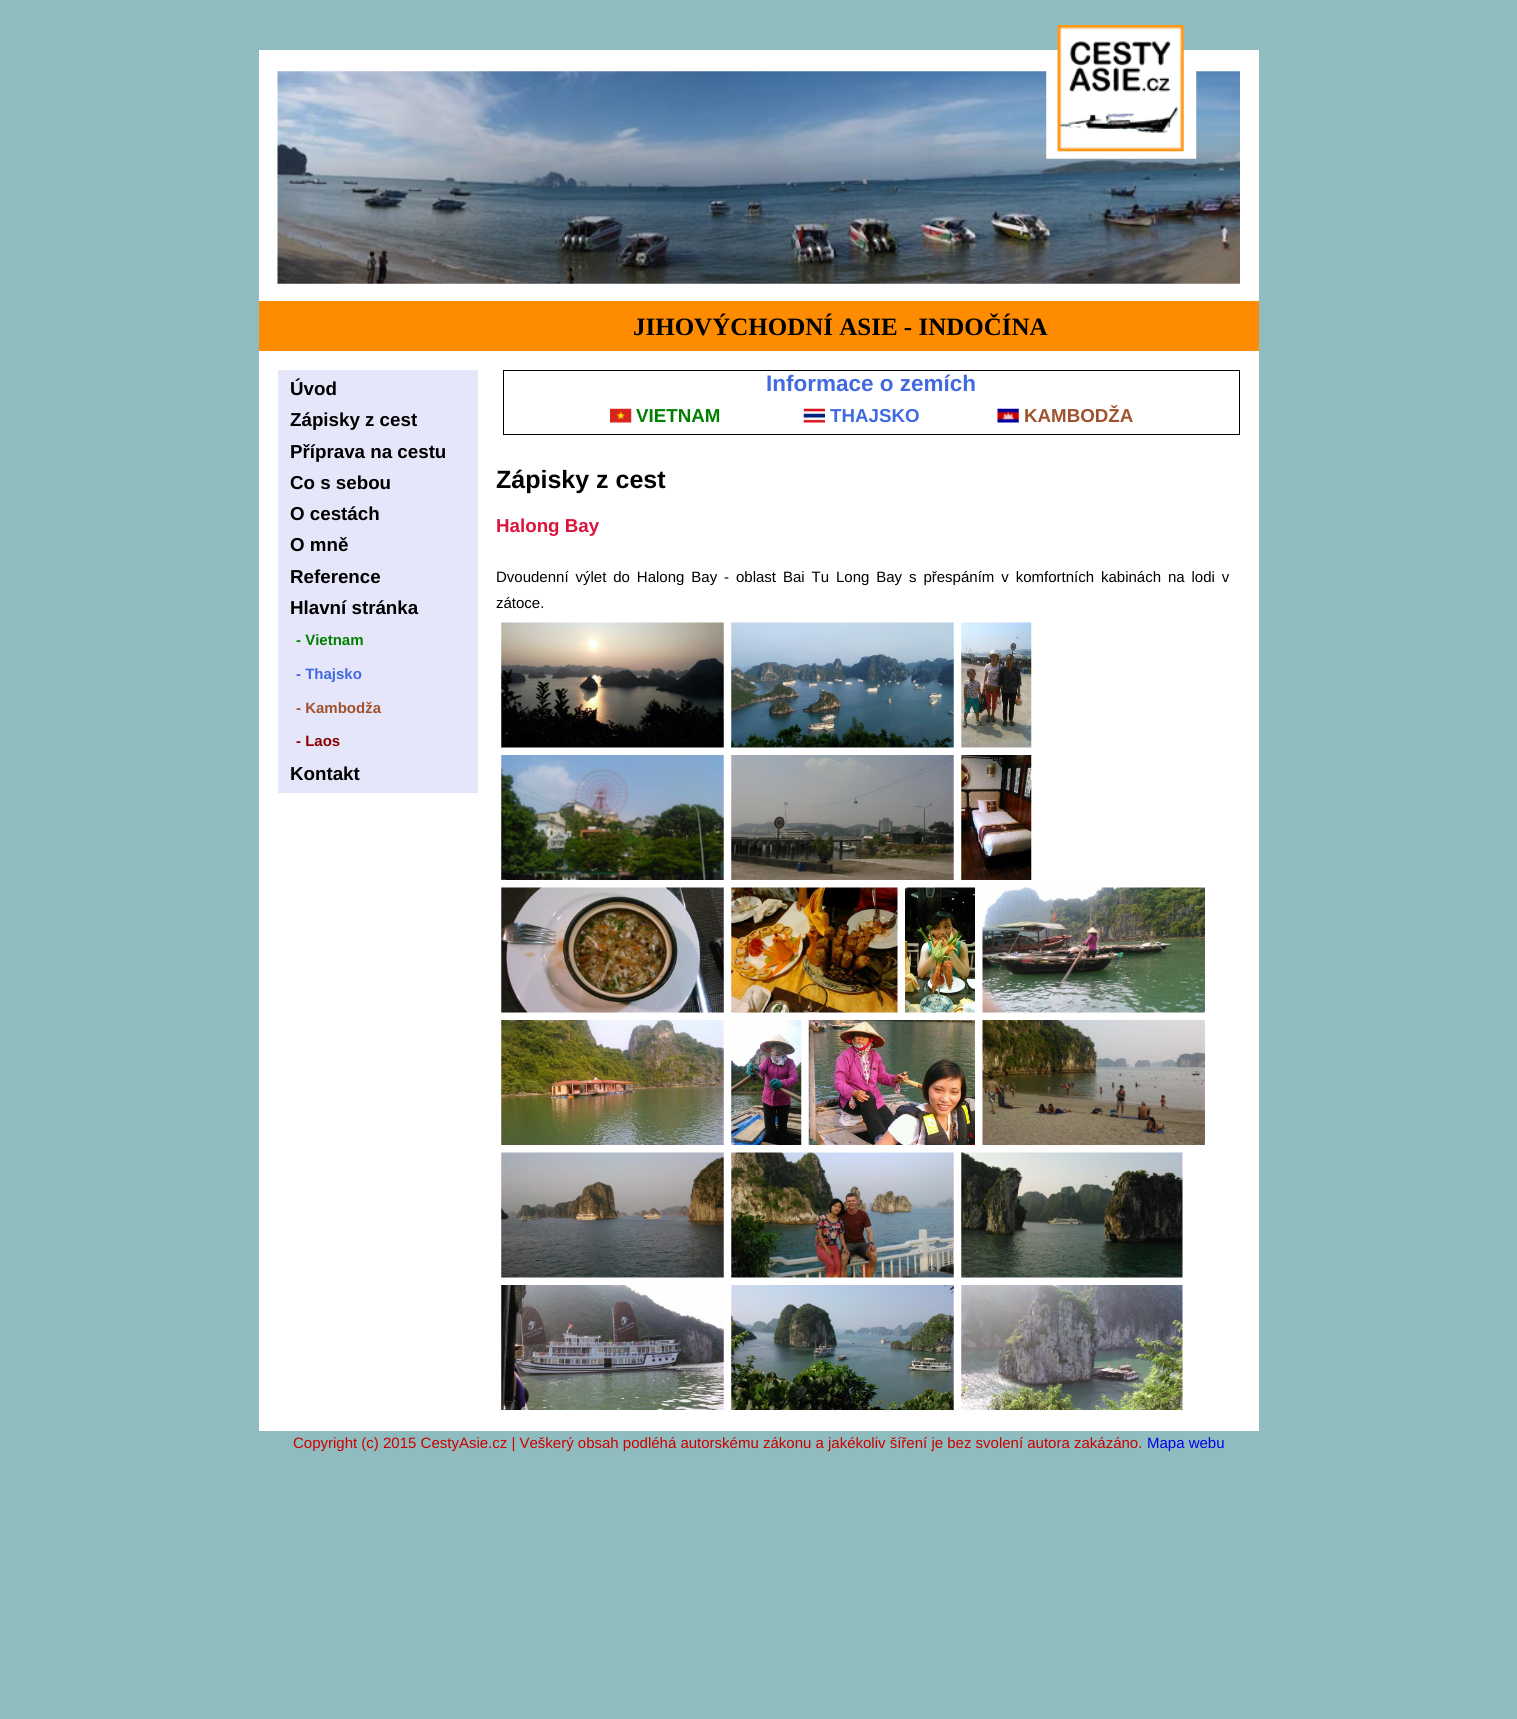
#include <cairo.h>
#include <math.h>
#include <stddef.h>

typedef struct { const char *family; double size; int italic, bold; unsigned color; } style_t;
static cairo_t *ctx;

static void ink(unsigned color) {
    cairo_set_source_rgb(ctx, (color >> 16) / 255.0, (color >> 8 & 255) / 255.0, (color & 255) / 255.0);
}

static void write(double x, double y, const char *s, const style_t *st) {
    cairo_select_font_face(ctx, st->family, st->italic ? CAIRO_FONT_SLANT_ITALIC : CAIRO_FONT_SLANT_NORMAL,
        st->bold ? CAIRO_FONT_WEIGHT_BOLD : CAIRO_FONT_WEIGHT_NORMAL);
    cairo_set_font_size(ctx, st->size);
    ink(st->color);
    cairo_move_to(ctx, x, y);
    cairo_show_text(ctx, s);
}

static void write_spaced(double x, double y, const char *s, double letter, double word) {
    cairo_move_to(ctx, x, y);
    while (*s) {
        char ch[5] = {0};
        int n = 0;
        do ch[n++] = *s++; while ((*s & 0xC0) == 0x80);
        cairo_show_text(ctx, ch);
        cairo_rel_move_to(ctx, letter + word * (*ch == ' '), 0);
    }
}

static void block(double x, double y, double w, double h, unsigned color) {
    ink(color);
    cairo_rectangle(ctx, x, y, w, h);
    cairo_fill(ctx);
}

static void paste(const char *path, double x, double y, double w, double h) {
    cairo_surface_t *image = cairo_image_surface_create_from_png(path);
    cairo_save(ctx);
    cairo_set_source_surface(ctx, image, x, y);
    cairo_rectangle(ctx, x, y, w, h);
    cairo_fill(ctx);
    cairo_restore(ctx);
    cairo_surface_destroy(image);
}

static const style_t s1 = {"Liberation Serif", 25, 0, 1, 0x000000};
static const style_t s2 = {"Liberation Sans", 18.75, 0, 1, 0x000000};
static const style_t s3 = {"Liberation Sans", 15, 0, 1, 0x008000};
static const style_t s4 = {"Liberation Sans", 15, 0, 1, 0x4169e1};
static const style_t s5 = {"Liberation Sans", 15, 0, 1, 0xa0522d};
static const style_t s6 = {"Liberation Sans", 15, 0, 1, 0x8b0000};
static const style_t s7 = {"Liberation Sans", 22.5, 0, 1, 0x4169e1};
static const style_t s8 = {"Liberation Sans", 18.75, 0, 1, 0x008000};
static const style_t s9 = {"Liberation Sans", 18.75, 0, 1, 0x4169e1};
static const style_t s10 = {"Liberation Sans", 18.75, 0, 1, 0xa0522d};
static const style_t s11 = {"Liberation Sans", 25, 0, 1, 0x000000};
static const style_t s12 = {"Liberation Sans", 18.75, 0, 1, 0xdc143c};
static const style_t s13 = {"Liberation Sans", 15, 0, 0, 0x000000};
static const style_t s14 = {"Liberation Sans", 15, 0, 0, 0xcc0000};
static const style_t s15 = {"Liberation Sans", 15, 0, 0, 0x0000ee};

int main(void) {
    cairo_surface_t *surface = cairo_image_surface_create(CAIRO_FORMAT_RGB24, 1517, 1719);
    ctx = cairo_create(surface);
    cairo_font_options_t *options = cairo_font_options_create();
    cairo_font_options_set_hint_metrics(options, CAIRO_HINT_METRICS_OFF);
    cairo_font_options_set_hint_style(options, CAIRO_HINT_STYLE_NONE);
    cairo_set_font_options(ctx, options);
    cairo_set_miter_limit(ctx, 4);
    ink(0x8fbcbf);
    cairo_paint(ctx);
    block(259, 50, 1000, 1381, 0xffffff);
    paste("pic2.png", 277, 71, 963, 213);
    paste("pic1.png", 1046, 25, 151, 134);
    block(259, 301, 1000, 50, 0xff8c00);
    write(633, 335, "JIHOVÝCHODNÍ ASIE - INDOČÍNA", &s1);
    block(278, 370, 200, 423, 0xe6e6fa);
    write(290, 395, "Úvod", &s2);
    write(290, 426, "Zápisky z cest", &s2);
    write(290, 458, "Příprava na cestu", &s2);
    write(290, 489, "Co s sebou", &s2);
    write(290, 520, "O cestách", &s2);
    write(290, 551, "O mně", &s2);
    write(290, 583, "Reference", &s2);
    write(290, 614, "Hlavní stránka", &s2);
    write(296, 645, "- Vietnam", &s3);
    write(296, 679, "- Thajsko", &s4);
    write(296, 713, "- Kambodža", &s5);
    write(296, 746, "- Laos", &s6);
    write(290, 780, "Kontakt", &s2);
    cairo_rectangle(ctx, 503.5, 370.5, 736, 64);
    cairo_set_line_width(ctx, 1);
    cairo_stroke(ctx);
    write(766, 391, "Informace o zemích", &s7);
    paste("pic3.png", 610, 408, 22, 15);
    write(636, 422, "VIETNAM", &s8);
    paste("pic4.png", 803, 408, 22, 15);
    write(830, 422, "THAJSKO", &s9);
    paste("pic5.png", 997, 408, 22, 15);
    write(1024, 422, "KAMBODŽA", &s10);
    write(496, 488, "Zápisky z cest", &s11);
    write(496, 532, "Halong Bay", &s12);
    cairo_select_font_face(ctx, "Liberation Sans", CAIRO_FONT_SLANT_NORMAL, CAIRO_FONT_WEIGHT_NORMAL);
    cairo_set_font_size(ctx, 15);
    ink(0x000000);
    write_spaced(496, 582, "Dvoudenní výlet do Halong Bay - oblast Bai Tu Long Bay s přespáním v komfortních kabinách na lodi v", 0, 2.75);
    write(496, 608, "zátoce.", &s13);
    paste("pic6.png", 501, 622, 223, 126);
    paste("pic7.png", 731, 622, 223, 126);
    paste("pic8.png", 961, 622, 71, 126);
    paste("pic9.png", 501, 755, 223, 125);
    paste("pic10.png", 731, 755, 223, 125);
    paste("pic11.png", 961, 755, 71, 125);
    paste("pic12.png", 501, 887, 223, 126);
    paste("pic13.png", 731, 887, 167, 126);
    paste("pic14.png", 905, 887, 70, 126);
    paste("pic15.png", 982, 887, 223, 126);
    paste("pic16.png", 501, 1020, 223, 125);
    paste("pic17.png", 731, 1020, 71, 125);
    paste("pic18.png", 808, 1020, 167, 125);
    paste("pic19.png", 982, 1020, 223, 125);
    paste("pic20.png", 501, 1152, 223, 126);
    paste("pic21.png", 731, 1152, 223, 126);
    paste("pic22.png", 961, 1152, 222, 126);
    paste("pic23.png", 501, 1285, 223, 125);
    paste("pic24.png", 731, 1285, 223, 125);
    paste("pic25.png", 961, 1285, 222, 125);
    write(293, 1448, "Copyright (c) 2015 CestyAsie.cz | Veškerý obsah podléhá autorskému zákonu a jakékoliv šíření je bez svolení autora zakázáno.", &s14);
    write(1147, 1448, "Mapa webu", &s15);
    cairo_surface_write_to_png(surface, "screenshot.png");
    cairo_font_options_destroy(options);
    cairo_destroy(ctx);
    cairo_surface_destroy(surface);
    return 0;
}
